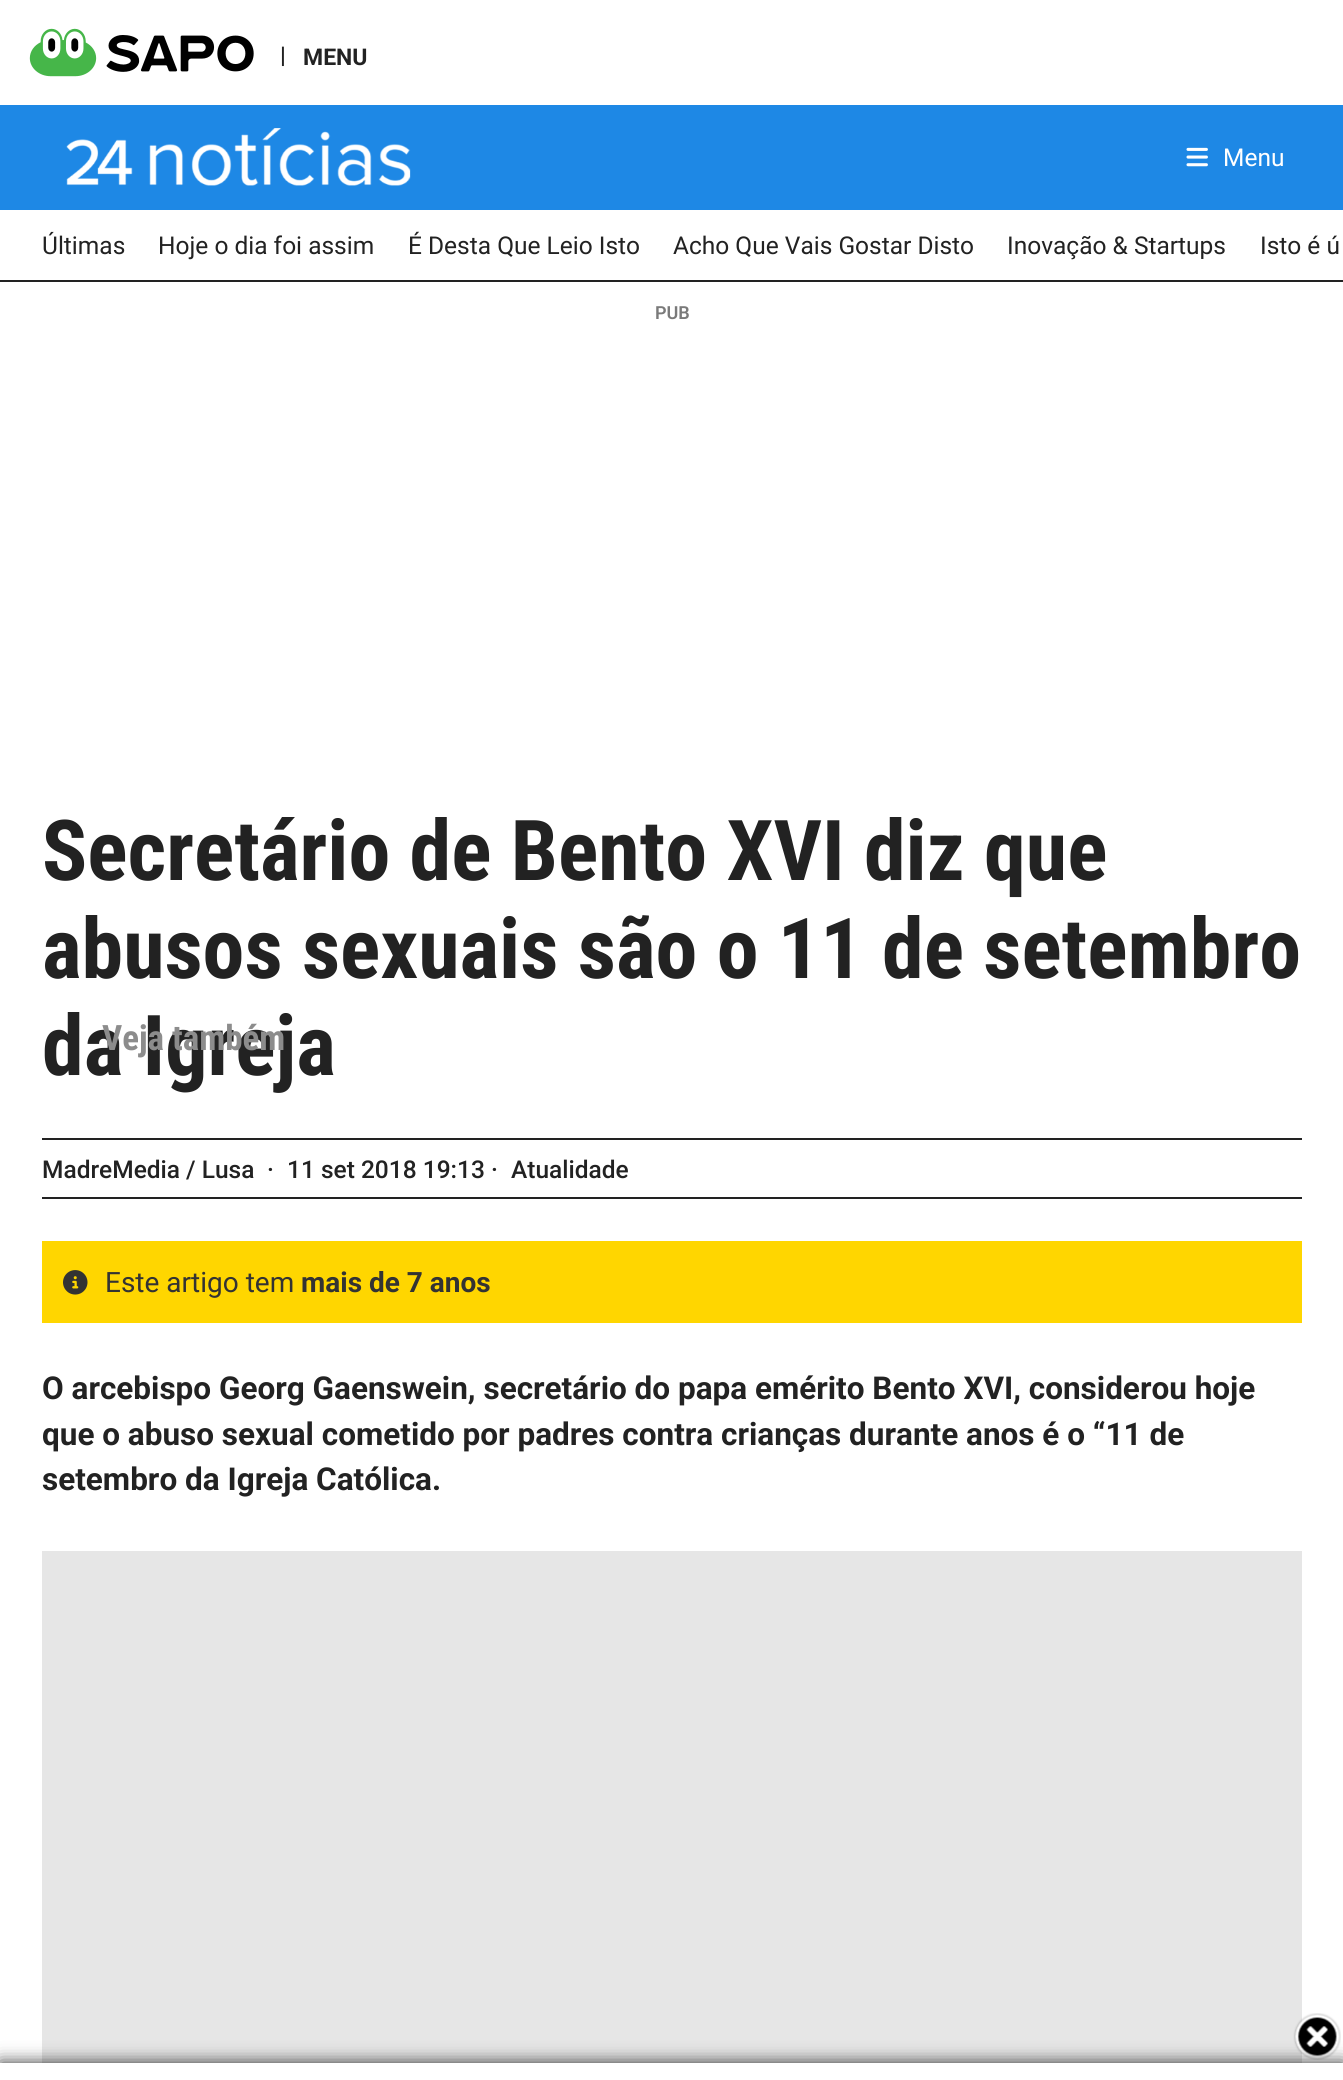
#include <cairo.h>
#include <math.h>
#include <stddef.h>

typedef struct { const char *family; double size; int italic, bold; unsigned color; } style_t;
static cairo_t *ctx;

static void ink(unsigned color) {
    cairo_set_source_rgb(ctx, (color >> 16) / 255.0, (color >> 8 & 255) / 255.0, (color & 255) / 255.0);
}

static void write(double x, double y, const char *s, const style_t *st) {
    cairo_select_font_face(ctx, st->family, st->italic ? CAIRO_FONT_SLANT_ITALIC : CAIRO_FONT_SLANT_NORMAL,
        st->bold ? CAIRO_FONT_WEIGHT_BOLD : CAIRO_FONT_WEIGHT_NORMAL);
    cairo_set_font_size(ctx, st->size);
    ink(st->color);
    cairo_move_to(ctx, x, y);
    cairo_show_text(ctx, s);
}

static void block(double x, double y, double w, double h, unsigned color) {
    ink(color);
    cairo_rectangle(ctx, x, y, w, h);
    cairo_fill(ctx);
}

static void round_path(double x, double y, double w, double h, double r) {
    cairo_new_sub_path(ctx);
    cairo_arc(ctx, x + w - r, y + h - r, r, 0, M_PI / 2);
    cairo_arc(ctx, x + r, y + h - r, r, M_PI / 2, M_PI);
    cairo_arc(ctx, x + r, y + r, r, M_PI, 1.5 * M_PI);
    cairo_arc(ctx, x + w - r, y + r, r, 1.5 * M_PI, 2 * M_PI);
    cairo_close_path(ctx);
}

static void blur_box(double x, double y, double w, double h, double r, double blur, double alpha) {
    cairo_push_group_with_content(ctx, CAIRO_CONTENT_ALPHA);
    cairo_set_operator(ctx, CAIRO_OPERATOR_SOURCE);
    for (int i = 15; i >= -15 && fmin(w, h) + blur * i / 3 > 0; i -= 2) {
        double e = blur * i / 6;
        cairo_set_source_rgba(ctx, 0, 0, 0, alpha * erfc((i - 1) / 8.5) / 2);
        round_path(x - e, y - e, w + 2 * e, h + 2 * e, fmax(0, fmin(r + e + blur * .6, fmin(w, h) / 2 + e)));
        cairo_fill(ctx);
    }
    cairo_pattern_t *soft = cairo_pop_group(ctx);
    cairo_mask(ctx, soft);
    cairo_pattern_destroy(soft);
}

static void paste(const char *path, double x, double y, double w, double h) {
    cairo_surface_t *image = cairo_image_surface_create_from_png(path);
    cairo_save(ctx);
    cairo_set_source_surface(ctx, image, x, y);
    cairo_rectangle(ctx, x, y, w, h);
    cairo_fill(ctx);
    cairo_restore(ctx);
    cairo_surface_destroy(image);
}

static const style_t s1 = {"Roboto", 23, 0, 1, 0x222222};
static const style_t s2 = {"Roboto", 24.5, 0, 0, 0xffffff};
static const style_t s3 = {"Roboto", 24.5, 0, 0, 0x222222};
static const style_t s4 = {"Roboto SemiBold", 18, 0, 0, 0x7a7a7a};
static const style_t s5 = {"Roboto Condensed", 84, 0, 1, 0x222222};
static const style_t s6 = {"Roboto Medium", 24.5, 0, 0, 0x222222};
static const style_t s7 = {"Roboto", 28, 0, 0, 0x333333};
static const style_t s8 = {"Roboto", 28, 0, 1, 0x333333};
static const style_t s9 = {"Roboto", 31.5, 0, 1, 0x222222};
static const style_t s10 = {"Roboto Condensed", 35, 0, 1, 0x8c8c8c};

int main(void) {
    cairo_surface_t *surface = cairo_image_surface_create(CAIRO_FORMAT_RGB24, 1343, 2080);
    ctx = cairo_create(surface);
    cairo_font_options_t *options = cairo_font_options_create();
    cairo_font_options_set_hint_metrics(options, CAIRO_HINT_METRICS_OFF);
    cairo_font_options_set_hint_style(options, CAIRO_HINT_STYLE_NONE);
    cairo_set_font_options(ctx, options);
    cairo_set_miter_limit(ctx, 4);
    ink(0xffffff);
    cairo_paint(ctx);
    paste("pic1.png", 29, 28, 225, 49);
    write(280, 63, "|", &s1);
    write(303, 65, "MENU", &s1);
    block(0, 105, 1343, 105, 0x1e88e5);
    paste("pic2.png", 66, 128, 345, 58);
    paste("pic3.png", 1186, 147, 22, 20);
    write(1223, 166, "Menu", &s2);
    block(0, 280, 1343, 2, 0x222222);
    write(42, 254, "Últimas", &s3);
    write(158, 254, "Hoje o dia foi assim", &s3);
    write(408, 254, "É Desta Que Leio Isto", &s3);
    write(673, 254, "Acho Que Vais Gostar Disto", &s3);
    write(1007, 254, "Inovação & Startups", &s3);
    write(1260, 254, "Isto é ú", &s3);
    write(655, 319, "PUB", &s4);
    write(42, 880, "Secretário de Bento XVI diz que", &s5);
    write(42, 978, "abusos sexuais são o 11 de setembro", &s5);
    write(42, 1075, "da Igreja", &s5);
    block(42, 1138, 1260, 2, 0x222222);
    block(42, 1197, 1260, 2, 0x222222);
    write(42, 1178, "MadreMedia / Lusa", &s6);
    write(267, 1178, "·", &s6);
    write(287, 1178, "11 set 2018 19:13 ·", &s6);
    write(511, 1178, "Atualidade", &s6);
    block(42, 1241, 1260, 82, 0xffd600);
    paste("pic4.png", 63, 1270, 25, 25);
    write(105, 1292, "Este artigo tem", &s7);
    write(301, 1292, "mais de 7 anos", &s8);
    write(42, 1399, "O arcebispo Georg Gaenswein, secretário do papa emérito Bento XVI, considerou hoje", &s9);
    write(42, 1445, "que o abuso sexual cometido por padres contra crianças durante anos é o “11 de", &s9);
    write(42, 1490, "setembro da Igreja Católica.", &s9);
    block(42, 1551, 1260, 512, 0xe6e6e6);
    write(102, 1050, "Veja também", &s10);
    paste("pic5.png", 1293, 2013, 48, 47);
    ink(0x000000);
    blur_box(0, 2063, 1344, 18, 0, 9, 0.8);
    block(0, 2063, 1343, 17, 0xffffff);
    cairo_surface_write_to_png(surface, "screenshot.png");
    cairo_font_options_destroy(options);
    cairo_destroy(ctx);
    cairo_surface_destroy(surface);
    return 0;
}
